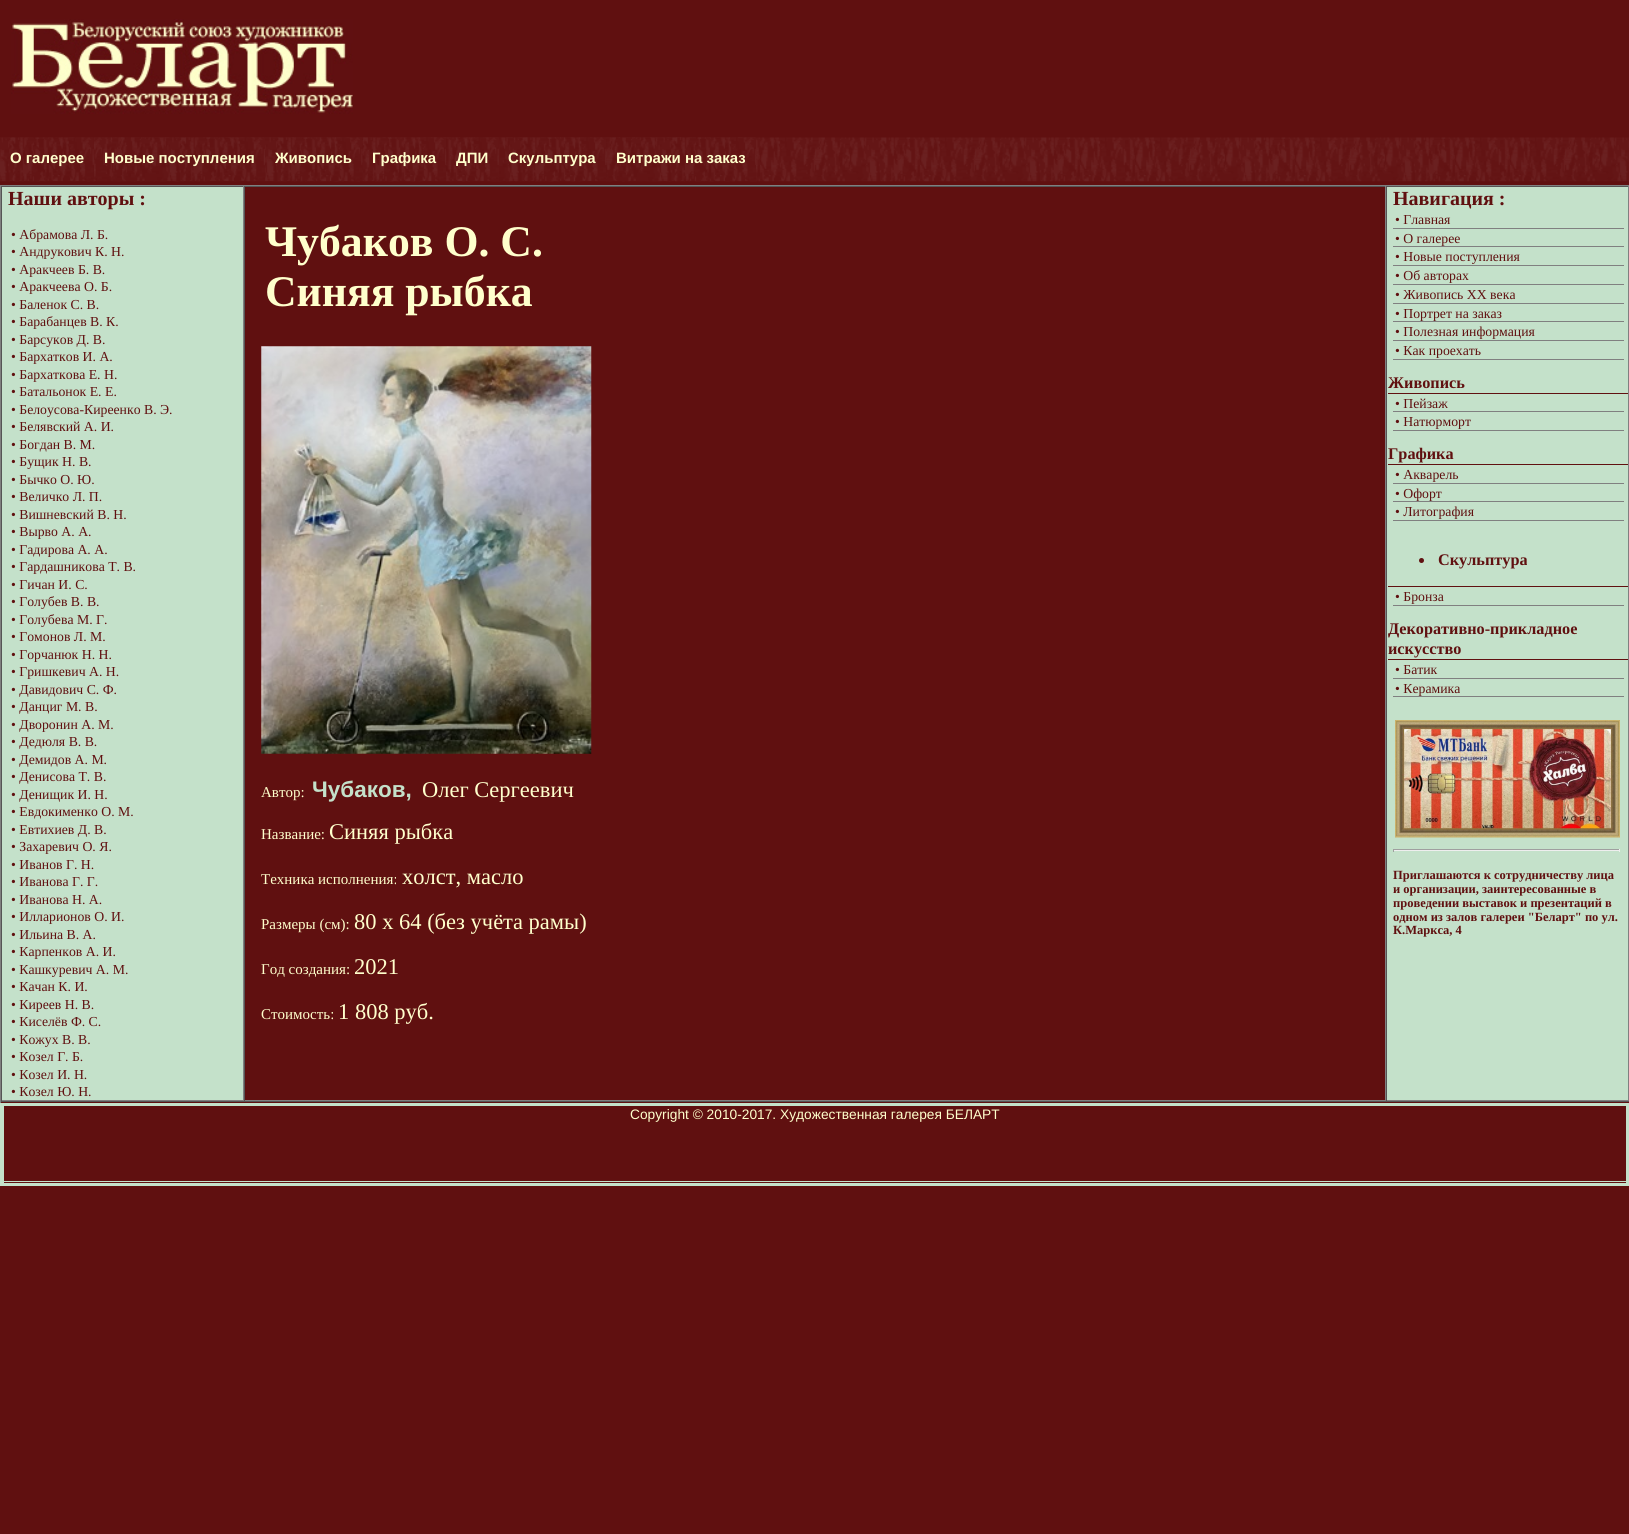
#include <cairo.h>
#include <math.h>
#include <stddef.h>

typedef struct { const char *family; double size; int italic, bold; unsigned color; } style_t;
static cairo_t *ctx;

static void ink(unsigned color) {
    cairo_set_source_rgb(ctx, (color >> 16) / 255.0, (color >> 8 & 255) / 255.0, (color & 255) / 255.0);
}

static void write(double x, double y, const char *s, const style_t *st) {
    cairo_select_font_face(ctx, st->family, st->italic ? CAIRO_FONT_SLANT_ITALIC : CAIRO_FONT_SLANT_NORMAL,
        st->bold ? CAIRO_FONT_WEIGHT_BOLD : CAIRO_FONT_WEIGHT_NORMAL);
    cairo_set_font_size(ctx, st->size);
    ink(st->color);
    cairo_move_to(ctx, x, y);
    cairo_show_text(ctx, s);
}

static void block(double x, double y, double w, double h, unsigned color) {
    ink(color);
    cairo_rectangle(ctx, x, y, w, h);
    cairo_fill(ctx);
}

static void paste(const char *path, double x, double y, double w, double h) {
    cairo_surface_t *image = cairo_image_surface_create_from_png(path);
    cairo_save(ctx);
    cairo_set_source_surface(ctx, image, x, y);
    cairo_rectangle(ctx, x, y, w, h);
    cairo_fill(ctx);
    cairo_restore(ctx);
    cairo_surface_destroy(image);
}

static const style_t s1 = {"Liberation Sans", 15, 0, 1, 0xffffcc};
static const style_t s2 = {"Liberation Serif", 20, 0, 1, 0x601010};
static const style_t s3 = {"Liberation Serif", 13.75, 0, 0, 0x601010};
static const style_t s4 = {"Liberation Serif", 43.75, 0, 1, 0xffffcc};
static const style_t s5 = {"Liberation Serif", 15, 0, 0, 0xffffcc};
static const style_t s6 = {"Liberation Sans", 22.5, 0, 1, 0xc4e1ca};
static const style_t s7 = {"Liberation Serif", 22.5, 0, 0, 0xffffcc};
static const style_t s8 = {"Liberation Serif", 16.25, 0, 1, 0x601010};
static const style_t s9 = {"Liberation Serif", 12.5, 0, 1, 0x601010};
static const style_t s10 = {"Liberation Sans", 13.75, 0, 0, 0xffffcc};

int main(void) {
    cairo_surface_t *surface = cairo_image_surface_create(CAIRO_FORMAT_RGB24, 1629, 1534);
    ctx = cairo_create(surface);
    cairo_font_options_t *options = cairo_font_options_create();
    cairo_font_options_set_hint_metrics(options, CAIRO_HINT_METRICS_OFF);
    cairo_font_options_set_hint_style(options, CAIRO_HINT_STYLE_NONE);
    cairo_set_font_options(ctx, options);
    cairo_set_miter_limit(ctx, 4);
    ink(0x601010);
    cairo_paint(ctx);
    paste("pic1.png", 11, 19, 342, 95);
    paste("pic2.png", 0, 137, 1629, 45);
    paste("pic3.png", 0, 137, 94, 44);
    write(10, 163, "О галерее", &s1);
    paste("pic4.png", 94, 137, 171, 1);
    paste("pic5.png", 94, 137, 171, 44);
    write(104, 163, "Новые поступления", &s1);
    paste("pic6.png", 265, 137, 98, 44);
    paste("pic7.png", 265, 137, 98, 44);
    write(275, 163, "Живопись", &s1);
    paste("pic8.png", 362, 137, 84, 44);
    paste("pic9.png", 362, 137, 84, 44);
    write(372, 163, "Графика", &s1);
    paste("pic10.png", 446, 137, 53, 44);
    paste("pic11.png", 446, 137, 53, 44);
    write(456, 163, "ДПИ", &s1);
    paste("pic12.png", 499, 137, 107, 1);
    paste("pic13.png", 499, 137, 107, 44);
    write(508, 163, "Скульптура", &s1);
    paste("pic14.png", 606, 137, 150, 44);
    paste("pic15.png", 606, 137, 150, 44);
    write(616, 163, "Витражи на заказ", &s1);
    block(0, 185, 1629, 1, 0x808080);
    block(0, 1101, 1629, 1, 0x555555);
    block(0, 185, 1, 918, 0x808080);
    block(2, 187, 241, 913, 0xc4e1ca);
    block(1, 186, 1628, 1, 0x555555);
    block(243, 186, 1, 915, 0x808080);
    block(1, 1100, 243, 1, 0x808080);
    block(1, 186, 1, 915, 0x555555);
    write(8, 205, "Наши авторы :", &s2);
    write(11, 239, "• Абрамова Л. Б.", &s3);
    write(11, 256, "• Андрукович К. Н.", &s3);
    write(11, 274, "• Аракчеев Б. В.", &s3);
    write(11, 291, "• Аракчеева О. Б.", &s3);
    write(11, 309, "• Баленок С. В.", &s3);
    write(11, 326, "• Барабанцев В. К.", &s3);
    write(11, 344, "• Барсуков Д. В.", &s3);
    write(11, 361, "• Бархатков И. А.", &s3);
    write(11, 379, "• Бархаткова Е. Н.", &s3);
    write(11, 396, "• Батальонок Е. Е.", &s3);
    write(11, 414, "• Белоусова-Киреенко В. Э.", &s3);
    write(11, 431, "• Белявский А. И.", &s3);
    write(11, 449, "• Богдан В. М.", &s3);
    write(11, 466, "• Бущик Н. В.", &s3);
    write(11, 484, "• Бычко О. Ю.", &s3);
    write(11, 501, "• Величко Л. П.", &s3);
    write(11, 519, "• Вишневский В. Н.", &s3);
    write(11, 536, "• Вырво А. А.", &s3);
    write(11, 554, "• Гадирова А. А.", &s3);
    write(11, 571, "• Гардашникова Т. В.", &s3);
    write(11, 589, "• Гичан И. С.", &s3);
    write(11, 606, "• Голубев В. В.", &s3);
    write(11, 624, "• Голубева М. Г.", &s3);
    write(11, 641, "• Гомонов Л. М.", &s3);
    write(11, 659, "• Горчанюк Н. Н.", &s3);
    write(11, 676, "• Гришкевич А. Н.", &s3);
    write(11, 694, "• Давидович С. Ф.", &s3);
    write(11, 711, "• Данциг М. В.", &s3);
    write(11, 729, "• Дворонин А. М.", &s3);
    write(11, 746, "• Дедюля В. В.", &s3);
    write(11, 764, "• Демидов А. М.", &s3);
    write(11, 781, "• Денисова Т. В.", &s3);
    write(11, 799, "• Денищик И. Н.", &s3);
    write(11, 816, "• Евдокименко О. М.", &s3);
    write(11, 834, "• Евтихиев Д. В.", &s3);
    write(11, 851, "• Захаревич О. Я.", &s3);
    write(11, 869, "• Иванов Г. Н.", &s3);
    write(11, 886, "• Иванова Г. Г.", &s3);
    write(11, 904, "• Иванова Н. А.", &s3);
    write(11, 921, "• Илларионов О. И.", &s3);
    write(11, 939, "• Ильина В. А.", &s3);
    write(11, 956, "• Карпенков А. И.", &s3);
    write(11, 974, "• Кашкуревич А. М.", &s3);
    write(11, 991, "• Качан К. И.", &s3);
    write(11, 1009, "• Киреев Н. В.", &s3);
    write(11, 1026, "• Киселёв Ф. С.", &s3);
    write(11, 1044, "• Кожух В. В.", &s3);
    write(11, 1061, "• Козел Г. Б.", &s3);
    write(11, 1079, "• Козел И. Н.", &s3);
    write(11, 1096, "• Козел Ю. Н.", &s3);
    block(1385, 186, 1, 915, 0x808080);
    block(244, 1100, 1142, 1, 0x808080);
    block(244, 186, 1, 915, 0x555555);
    write(265, 256, "Чубаков О. С.", &s4);
    write(265, 306, "Синяя рыбка", &s4);
    paste("pic16.png", 261, 346, 331, 408);
    write(261, 797, "Автор:", &s5);
    write(312, 797, "Чубаков,", &s6);
    write(422, 797, "Олег Сергеевич", &s7);
    write(261, 839, "Название:", &s5);
    write(329, 839, "Синяя рыбка", &s7);
    write(261, 884, "Техника исполнения:", &s5);
    write(402, 884, "холст, масло", &s7);
    write(261, 929, "Размеры (см):", &s5);
    write(354, 929, "80 х 64 (без учёта рамы)", &s7);
    write(261, 974, "Год создания:", &s5);
    write(354, 974, "2021", &s7);
    write(261, 1019, "Стоимость:", &s5);
    write(338, 1019, "1 808 руб.", &s7);
    block(1387, 187, 241, 913, 0xc4e1ca);
    block(1628, 186, 1, 915, 0x808080);
    block(1386, 1100, 243, 1, 0x808080);
    block(1386, 186, 1, 915, 0x555555);
    write(1393, 205, "Навигация :", &s2);
    block(1393, 228, 231, 1, 0x808080);
    write(1395, 224, "• Главная", &s3);
    block(1393, 246, 231, 1, 0x808080);
    write(1395, 243, "• О галерее", &s3);
    block(1393, 265, 231, 1, 0x808080);
    write(1395, 261, "• Новые поступления", &s3);
    block(1393, 284, 231, 1, 0x808080);
    write(1395, 280, "• Об авторах", &s3);
    block(1393, 303, 231, 1, 0x808080);
    write(1395, 299, "• Живопись XX века", &s3);
    block(1393, 321, 231, 1, 0x808080);
    write(1395, 318, "• Портрет на заказ", &s3);
    block(1393, 340, 231, 1, 0x808080);
    write(1395, 336, "• Полезная информация", &s3);
    block(1393, 359, 231, 1, 0x808080);
    write(1395, 355, "• Как проехать", &s3);
    block(1388, 393, 240, 1, 0x601010);
    write(1388, 388, "Живопись", &s8);
    block(1393, 411, 231, 1, 0x808080);
    write(1395, 408, "• Пейзаж", &s3);
    block(1393, 430, 231, 1, 0x808080);
    write(1395, 426, "• Натюрморт", &s3);
    block(1388, 464, 240, 1, 0x601010);
    write(1388, 459, "Графика", &s8);
    block(1393, 483, 231, 1, 0x808080);
    write(1395, 479, "• Акварель", &s3);
    block(1393, 501, 231, 1, 0x808080);
    write(1395, 498, "• Офорт", &s3);
    block(1393, 520, 231, 1, 0x808080);
    write(1395, 516, "• Литография", &s3);
    block(1388, 586, 240, 1, 0x601010);
    cairo_new_path(ctx);
    cairo_arc(ctx, 1421.5, 560.5, 2.5, 0, 2 * M_PI);
    cairo_fill(ctx);
    write(1438, 565, "Скульптура", &s8);
    block(1393, 605, 231, 1, 0x808080);
    write(1395, 601, "• Бронза", &s3);
    block(1388, 659, 240, 1, 0x601010);
    write(1388, 634, "Декоративно-прикладное", &s8);
    write(1388, 654, "искусство", &s8);
    block(1393, 678, 231, 1, 0x808080);
    write(1395, 674, "• Батик", &s3);
    block(1393, 696, 231, 1, 0x808080);
    write(1395, 693, "• Керамика", &s3);
    paste("pic17.png", 1395, 720, 225, 118);
    block(1393, 849, 227, 1, 0x9f9f9f);
    block(1619, 849, 1, 3, 0xeeeeee);
    block(1393, 850, 227, 1, 0xeeeeee);
    block(1393, 849, 1, 3, 0x9f9f9f);
    write(1393, 879, "Приглашаются к сотрудничеству лица", &s9);
    write(1393, 893, "и организации, заинтересованные в", &s9);
    write(1393, 907, "проведении выставок и презентаций в", &s9);
    write(1393, 921, "одном из залов галереи \"Беларт\" по ул.", &s9);
    write(1393, 934, "К.Маркса, 4", &s9);
    cairo_rectangle(ctx, 2, 1105, 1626, 79);
    ink(0xc4e1ca);
    cairo_set_line_width(ctx, 4);
    cairo_stroke(ctx);
    block(4, 1106, 1622, 77, 0x601010);
    block(4, 1181, 1622, 1, 0xc4e1ca);
    write(630, 1119, "Copyright © 2010-2017. Художественная галерея БЕЛАРТ", &s10);
    cairo_surface_write_to_png(surface, "screenshot.png");
    cairo_font_options_destroy(options);
    cairo_destroy(ctx);
    cairo_surface_destroy(surface);
    return 0;
}
